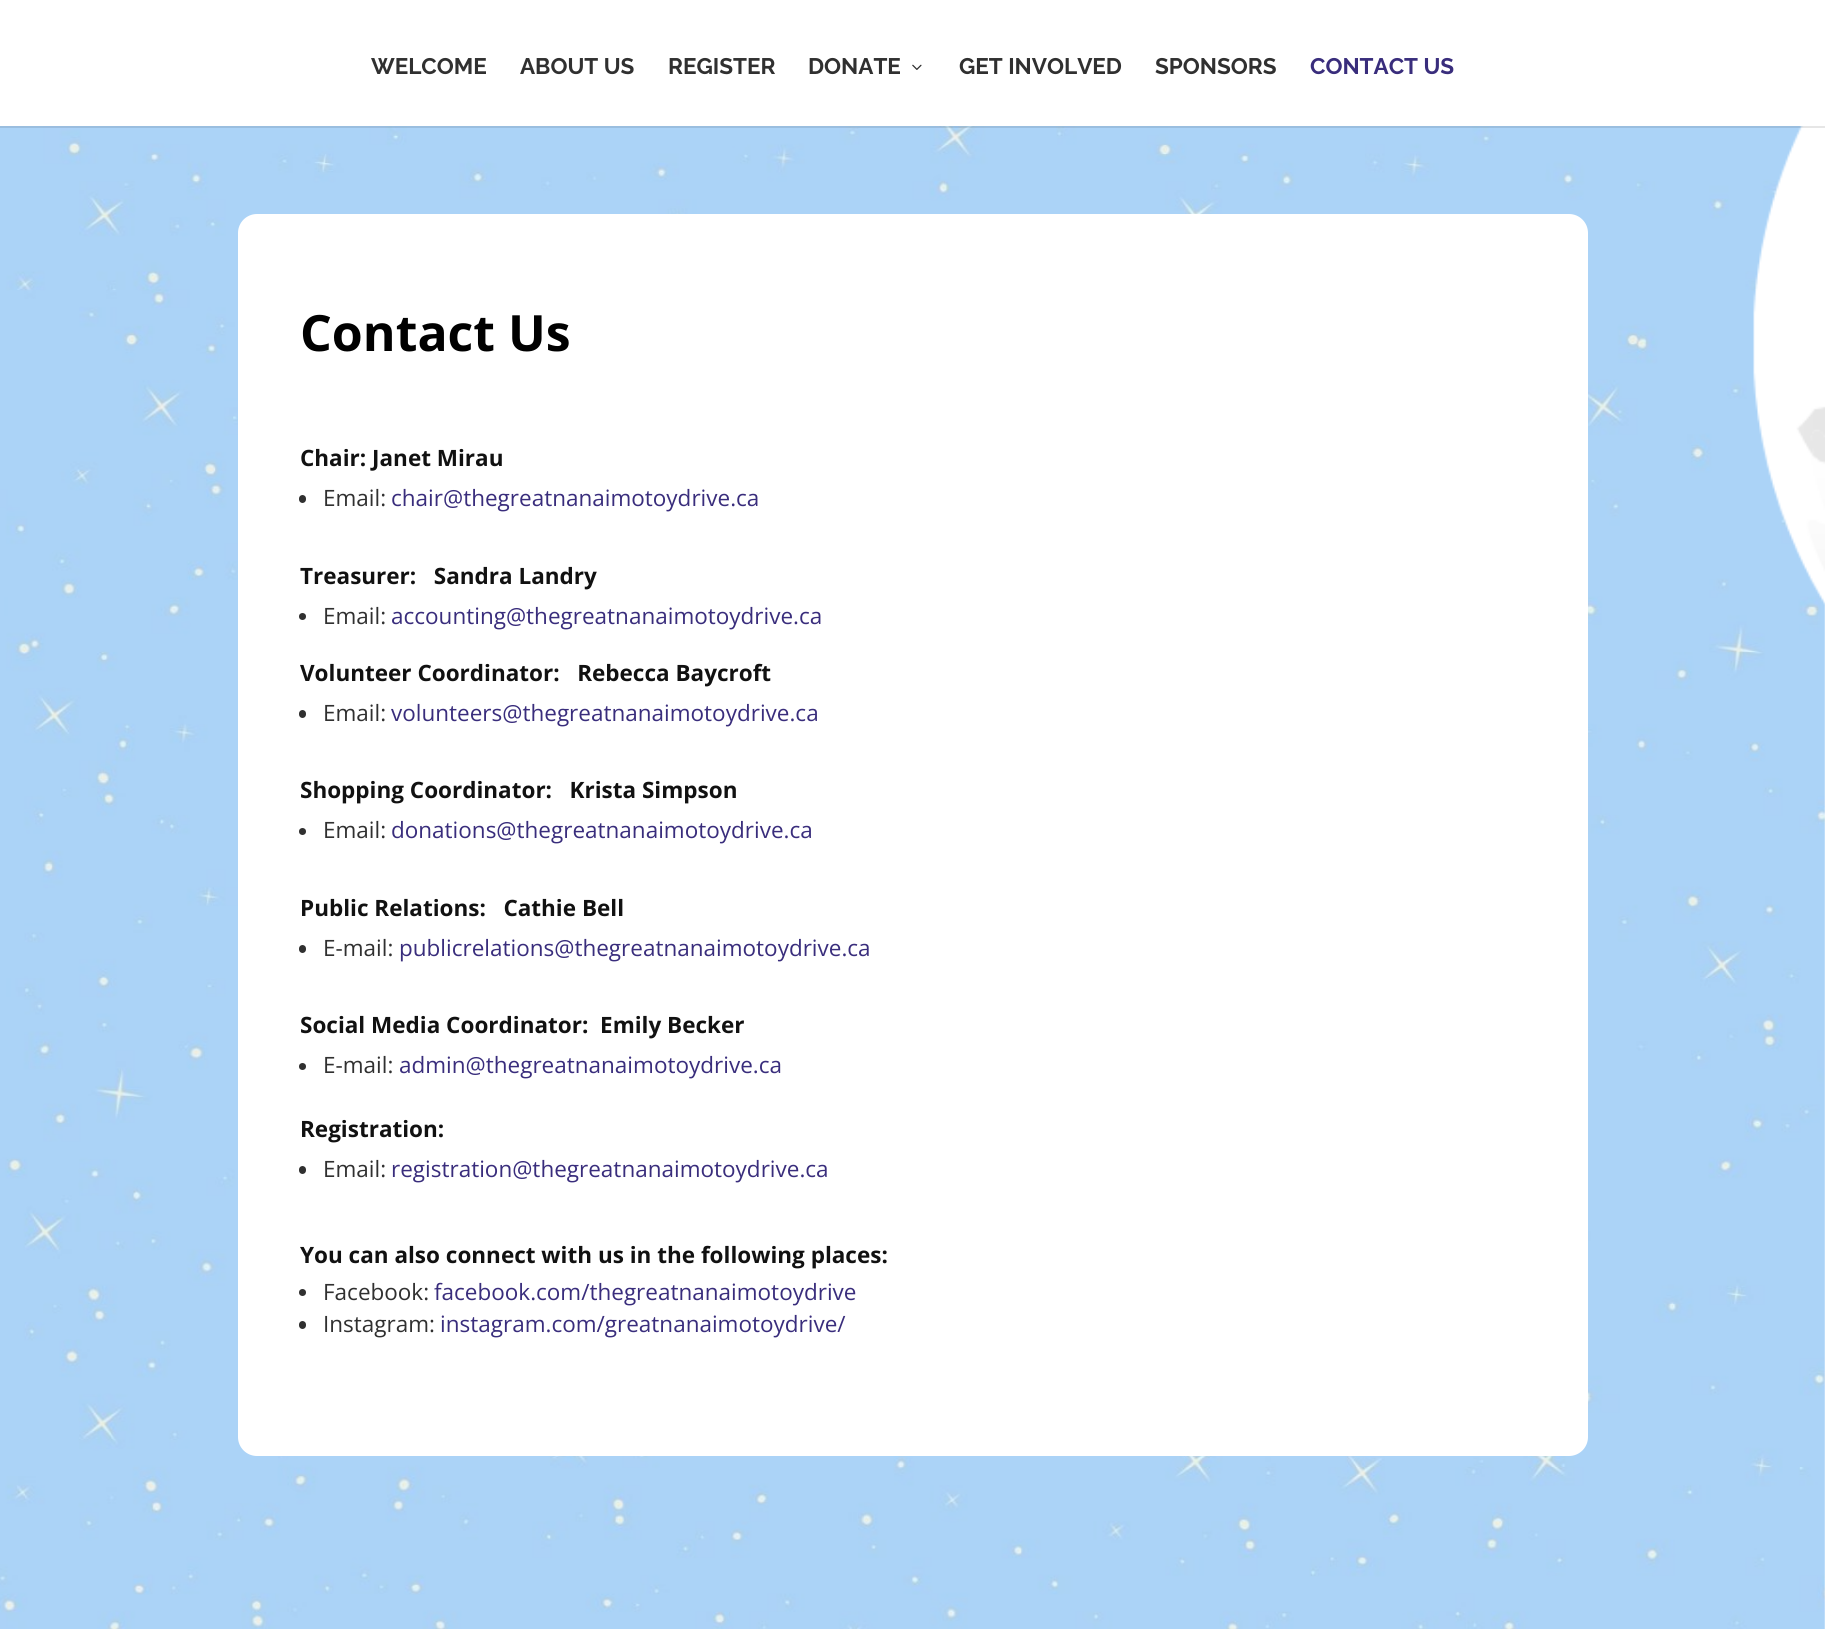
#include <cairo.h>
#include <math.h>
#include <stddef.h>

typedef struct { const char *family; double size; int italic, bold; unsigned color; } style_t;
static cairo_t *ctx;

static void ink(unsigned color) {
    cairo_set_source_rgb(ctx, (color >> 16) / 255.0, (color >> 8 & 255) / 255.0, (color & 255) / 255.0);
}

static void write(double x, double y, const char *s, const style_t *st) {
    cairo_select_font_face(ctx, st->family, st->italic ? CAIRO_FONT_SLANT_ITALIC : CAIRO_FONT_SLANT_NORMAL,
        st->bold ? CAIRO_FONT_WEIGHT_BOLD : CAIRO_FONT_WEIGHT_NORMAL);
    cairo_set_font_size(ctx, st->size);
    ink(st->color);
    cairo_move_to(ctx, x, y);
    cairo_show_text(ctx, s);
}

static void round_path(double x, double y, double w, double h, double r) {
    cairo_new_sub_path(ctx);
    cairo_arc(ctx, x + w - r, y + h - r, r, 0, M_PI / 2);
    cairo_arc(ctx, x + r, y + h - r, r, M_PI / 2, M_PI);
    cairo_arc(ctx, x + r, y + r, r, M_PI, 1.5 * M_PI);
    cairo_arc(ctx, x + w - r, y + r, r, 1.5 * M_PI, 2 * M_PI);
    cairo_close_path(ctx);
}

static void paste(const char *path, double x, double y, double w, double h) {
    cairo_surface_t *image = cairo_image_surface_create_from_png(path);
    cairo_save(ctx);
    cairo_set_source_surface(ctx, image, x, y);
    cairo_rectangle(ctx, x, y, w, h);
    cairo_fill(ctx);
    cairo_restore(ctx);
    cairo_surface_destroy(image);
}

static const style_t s1 = {"Raleway Thin", 22.5, 0, 0, 0x303030};
static const style_t s2 = {"Raleway Thin", 22.5, 0, 0, 0x392d7c};
static const style_t s3 = {"Open Sans", 50, 0, 1, 0x000000};
static const style_t s4 = {"Open Sans", 22.5, 0, 1, 0x111111};
static const style_t s5 = {"Open Sans", 22.5, 0, 0, 0x303030};
static const style_t s6 = {"Open Sans", 22.5, 0, 0, 0x392d7c};

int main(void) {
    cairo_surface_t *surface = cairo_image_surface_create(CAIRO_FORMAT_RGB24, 1825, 1629);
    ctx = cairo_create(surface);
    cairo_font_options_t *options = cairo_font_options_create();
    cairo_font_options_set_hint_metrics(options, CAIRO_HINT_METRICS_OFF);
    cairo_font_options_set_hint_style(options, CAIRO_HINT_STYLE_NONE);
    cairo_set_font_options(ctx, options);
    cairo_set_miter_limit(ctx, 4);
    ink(0xffffff);
    cairo_paint(ctx);
    paste("pic1.png", 0, 126, 1825, 1503);
    paste("pic3.png", 1753, 126, 72, 479);
    cairo_set_source_rgba(ctx, 0, 0, 0, 0.1);
    cairo_rectangle(ctx, 0, 126, 1825, 2);
    cairo_fill(ctx);
    write(371, 74, "WELCOME", &s1);
    write(520, 74, "ABOUT US", &s1);
    write(668, 74, "REGISTER", &s1);
    write(808, 74, "DONATE", &s1);
    paste("pic2.png", 912, 64, 10, 6);
    write(959, 74, "GET INVOLVED", &s1);
    write(1155, 74, "SPONSORS", &s1);
    write(1310, 74, "CONTACT US", &s2);
    ink(0xffffff);
    round_path(238, 214, 1350, 1242, 19);
    cairo_fill(ctx);
    write(300, 351, "Contact Us", &s3);
    write(300, 466, "Chair: Janet Mirau", &s4);
    ink(0x303030);
    round_path(299, 495, 7, 8, 3.5);
    cairo_fill(ctx);
    write(323, 506, "Email:", &s5);
    write(391, 506, "chair@thegreatnanaimotoydrive.ca", &s6);
    write(300, 584, "Treasurer:   Sandra Landry", &s4);
    ink(0x303030);
    cairo_new_path(ctx);
    cairo_arc(ctx, 302.5, 616.5, 3.5, 0, 2 * M_PI);
    cairo_fill(ctx);
    write(323, 624, "Email:", &s5);
    write(391, 624, "accounting@thegreatnanaimotoydrive.ca", &s6);
    write(300, 681, "Volunteer Coordinator:   Rebecca Baycroft", &s4);
    ink(0x303030);
    round_path(299, 710, 7, 8, 3.5);
    cairo_fill(ctx);
    write(323, 721, "Email:", &s5);
    write(391, 721, "volunteers@thegreatnanaimotoydrive.ca", &s6);
    write(300, 798, "Shopping Coordinator:   Krista Simpson", &s4);
    ink(0x303030);
    cairo_new_path(ctx);
    cairo_arc(ctx, 302.5, 831.5, 3.5, 0, 2 * M_PI);
    cairo_fill(ctx);
    write(323, 838, "Email:", &s5);
    write(391, 838, "donations@thegreatnanaimotoydrive.ca", &s6);
    write(300, 916, "Public Relations:   Cathie Bell", &s4);
    ink(0x303030);
    round_path(299, 945, 7, 8, 3.5);
    cairo_fill(ctx);
    write(323, 956, "E-mail:", &s5);
    write(399, 956, "publicrelations@thegreatnanaimotoydrive.ca", &s6);
    write(300, 1033, "Social Media Coordinator:  Emily Becker", &s4);
    ink(0x303030);
    cairo_new_path(ctx);
    cairo_arc(ctx, 302.5, 1066.5, 3.5, 0, 2 * M_PI);
    cairo_fill(ctx);
    write(323, 1073, "E-mail:", &s5);
    write(399, 1073, "admin@thegreatnanaimotoydrive.ca", &s6);
    write(300, 1137, "Registration:", &s4);
    ink(0x303030);
    round_path(299, 1166, 7, 8, 3.5);
    cairo_fill(ctx);
    write(323, 1177, "Email:", &s5);
    write(391, 1177, "registration@thegreatnanaimotoydrive.ca", &s6);
    write(300, 1263, "You can also connect with us in the following places:", &s4);
    ink(0x303030);
    cairo_new_path(ctx);
    cairo_arc(ctx, 302.5, 1292.5, 3.5, 0, 2 * M_PI);
    cairo_fill(ctx);
    write(323, 1300, "Facebook:", &s5);
    write(434, 1300, "facebook.com/thegreatnanaimotoydrive", &s6);
    ink(0x303030);
    round_path(299, 1321, 7, 8, 3.5);
    cairo_fill(ctx);
    write(323, 1332, "Instagram:", &s5);
    write(440, 1332, "instagram.com/greatnanaimotoydrive/", &s6);
    cairo_surface_write_to_png(surface, "screenshot.png");
    cairo_font_options_destroy(options);
    cairo_destroy(ctx);
    cairo_surface_destroy(surface);
    return 0;
}
